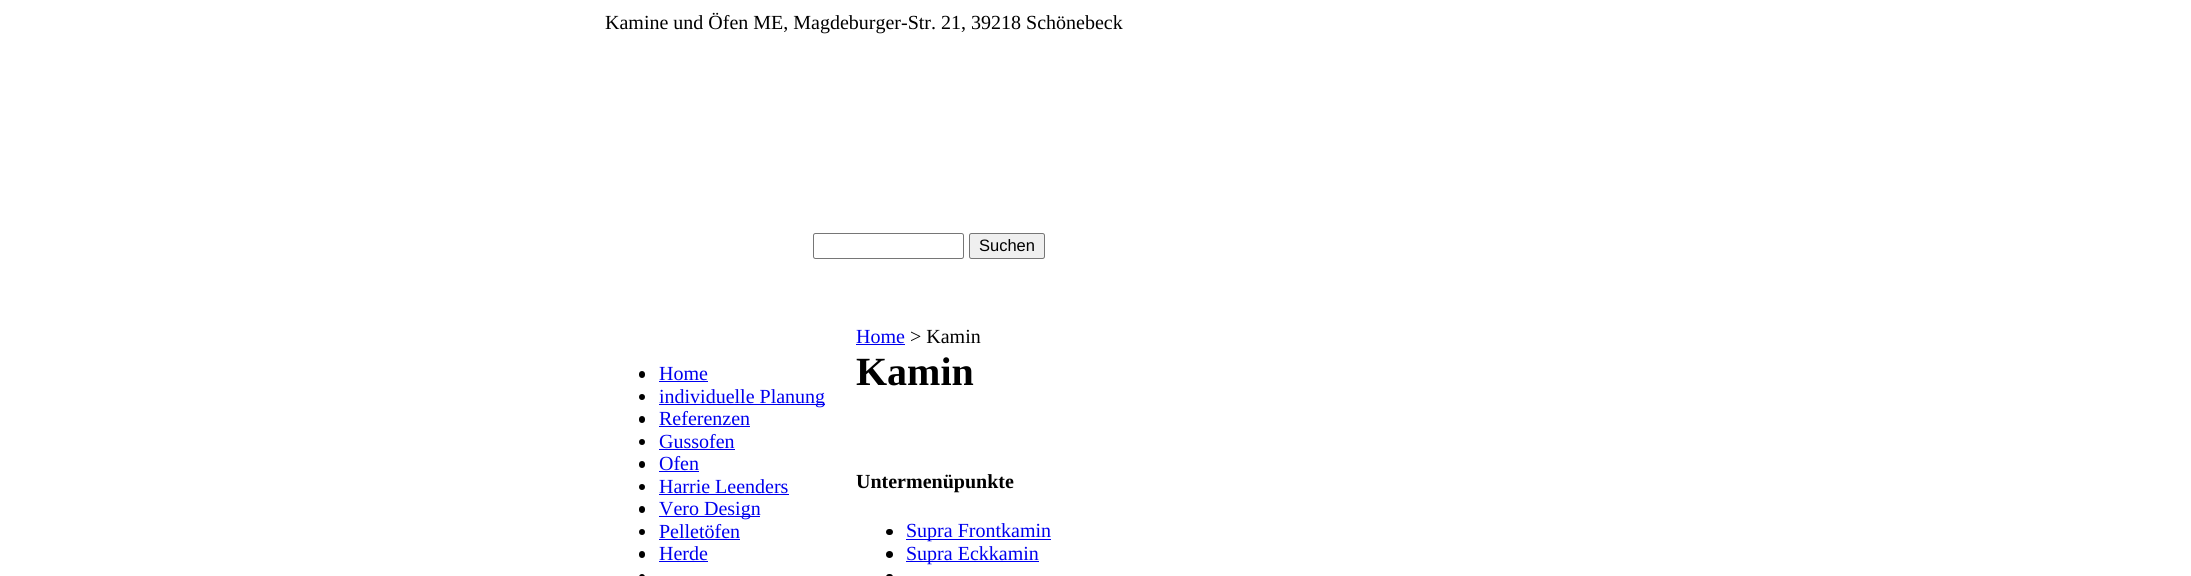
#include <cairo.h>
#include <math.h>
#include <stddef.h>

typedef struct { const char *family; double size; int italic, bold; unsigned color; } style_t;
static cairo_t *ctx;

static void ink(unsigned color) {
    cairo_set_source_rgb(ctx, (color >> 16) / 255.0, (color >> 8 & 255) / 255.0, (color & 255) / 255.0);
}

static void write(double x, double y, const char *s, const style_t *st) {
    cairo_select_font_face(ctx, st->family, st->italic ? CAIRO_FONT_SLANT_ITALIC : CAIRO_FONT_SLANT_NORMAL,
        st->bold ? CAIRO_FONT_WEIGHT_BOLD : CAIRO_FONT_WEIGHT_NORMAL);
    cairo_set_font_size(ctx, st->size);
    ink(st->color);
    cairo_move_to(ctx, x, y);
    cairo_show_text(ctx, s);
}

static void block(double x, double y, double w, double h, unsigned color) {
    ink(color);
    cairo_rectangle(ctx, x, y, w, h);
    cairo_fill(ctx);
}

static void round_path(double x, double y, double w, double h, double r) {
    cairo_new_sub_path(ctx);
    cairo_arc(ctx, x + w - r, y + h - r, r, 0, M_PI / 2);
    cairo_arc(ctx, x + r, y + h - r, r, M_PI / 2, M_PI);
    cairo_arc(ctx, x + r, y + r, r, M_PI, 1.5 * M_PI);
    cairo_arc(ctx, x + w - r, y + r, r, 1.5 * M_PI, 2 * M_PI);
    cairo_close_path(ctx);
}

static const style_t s1 = {"Liberation Serif", 20, 0, 0, 0x000000};
static const style_t s2 = {"Liberation Sans", 16.5, 0, 0, 0x000000};
static const style_t s3 = {"Liberation Serif", 20, 0, 0, 0x0000ee};
static const style_t s4 = {"Liberation Serif", 40, 0, 1, 0x000000};
static const style_t s5 = {"Liberation Serif", 20, 0, 1, 0x000000};

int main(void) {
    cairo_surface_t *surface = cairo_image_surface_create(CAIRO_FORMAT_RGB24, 2191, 576);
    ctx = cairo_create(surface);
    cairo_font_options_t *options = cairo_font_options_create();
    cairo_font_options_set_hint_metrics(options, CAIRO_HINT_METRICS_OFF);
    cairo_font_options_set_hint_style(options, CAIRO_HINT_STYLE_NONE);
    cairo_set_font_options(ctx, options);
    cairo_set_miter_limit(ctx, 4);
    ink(0xffffff);
    cairo_paint(ctx);
    write(605, 29, "Kamine und Öfen ME, Magdeburger-Str. 21, 39218 Schönebeck", &s1);
    round_path(813.5, 233.5, 150, 25, 2);
    ink(0x767676);
    cairo_set_line_width(ctx, 1);
    cairo_stroke(ctx);
    ink(0xefefef);
    round_path(969.5, 233.5, 75, 25, 2);
    cairo_fill_preserve(ctx);
    ink(0x767676);
    cairo_stroke(ctx);
    write(979, 251, "Suchen", &s2);
    round_path(639, 371, 6, 7, 3);
    cairo_fill(ctx);
    write(659, 380, "Home", &s3);
    block(659, 381, 49, 1, 0x0000ee);
    ink(0x000000);
    cairo_new_path(ctx);
    cairo_arc(ctx, 642, 397, 3, 0, 2 * M_PI);
    cairo_fill(ctx);
    block(659, 404, 166, 1, 0x0000ee);
    write(659, 403, "individuelle Planung", &s3);
    ink(0x000000);
    round_path(639, 416, 6, 7, 3);
    cairo_fill(ctx);
    write(659, 425, "Referenzen", &s3);
    block(659, 426, 91, 1, 0x0000ee);
    ink(0x000000);
    cairo_new_path(ctx);
    cairo_arc(ctx, 642, 442, 3, 0, 2 * M_PI);
    cairo_fill(ctx);
    write(659, 448, "Gussofen", &s3);
    block(659, 449, 76, 1, 0x0000ee);
    ink(0x000000);
    round_path(639, 461, 6, 7, 3);
    cairo_fill(ctx);
    write(659, 470, "Ofen", &s3);
    block(659, 471, 40, 1, 0x0000ee);
    ink(0x000000);
    cairo_new_path(ctx);
    cairo_arc(ctx, 642, 487, 3, 0, 2 * M_PI);
    cairo_fill(ctx);
    write(659, 493, "Harrie Leenders", &s3);
    block(659, 494, 130, 1, 0x0000ee);
    ink(0x000000);
    round_path(639, 506, 6, 7, 3);
    cairo_fill(ctx);
    block(659, 516, 101, 1, 0x0000ee);
    write(659, 515, "Vero Design", &s3);
    ink(0x000000);
    cairo_new_path(ctx);
    cairo_arc(ctx, 642, 532, 3, 0, 2 * M_PI);
    cairo_fill(ctx);
    write(659, 538, "Pelletöfen", &s3);
    block(659, 539, 81, 1, 0x0000ee);
    ink(0x000000);
    round_path(639, 551, 6, 7, 3);
    cairo_fill(ctx);
    write(659, 560, "Herde", &s3);
    block(659, 561, 49, 1, 0x0000ee);
    ink(0x000000);
    round_path(639, 574, 6, 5, 3);
    cairo_fill(ctx);
    write(856, 343, "Home", &s3);
    block(856, 344, 49, 1, 0x0000ee);
    write(910, 343, "> Kamin", &s1);
    write(856, 385, "Kamin", &s4);
    write(856, 488, "Untermenüpunkte", &s5);
    round_path(886, 529, 7, 6, 3);
    cairo_fill(ctx);
    block(906, 539, 145, 1, 0x0000ee);
    write(906, 537, "Supra Frontkamin", &s3);
    ink(0x000000);
    cairo_new_path(ctx);
    cairo_arc(ctx, 889.5, 554.5, 3.5, 0, 2 * M_PI);
    cairo_fill(ctx);
    block(906, 561, 133, 1, 0x0000ee);
    write(906, 560, "Supra Eckkamin", &s3);
    ink(0x000000);
    round_path(886, 574, 7, 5, 3);
    cairo_fill(ctx);
    cairo_surface_write_to_png(surface, "screenshot.png");
    cairo_font_options_destroy(options);
    cairo_destroy(ctx);
    cairo_surface_destroy(surface);
    return 0;
}
